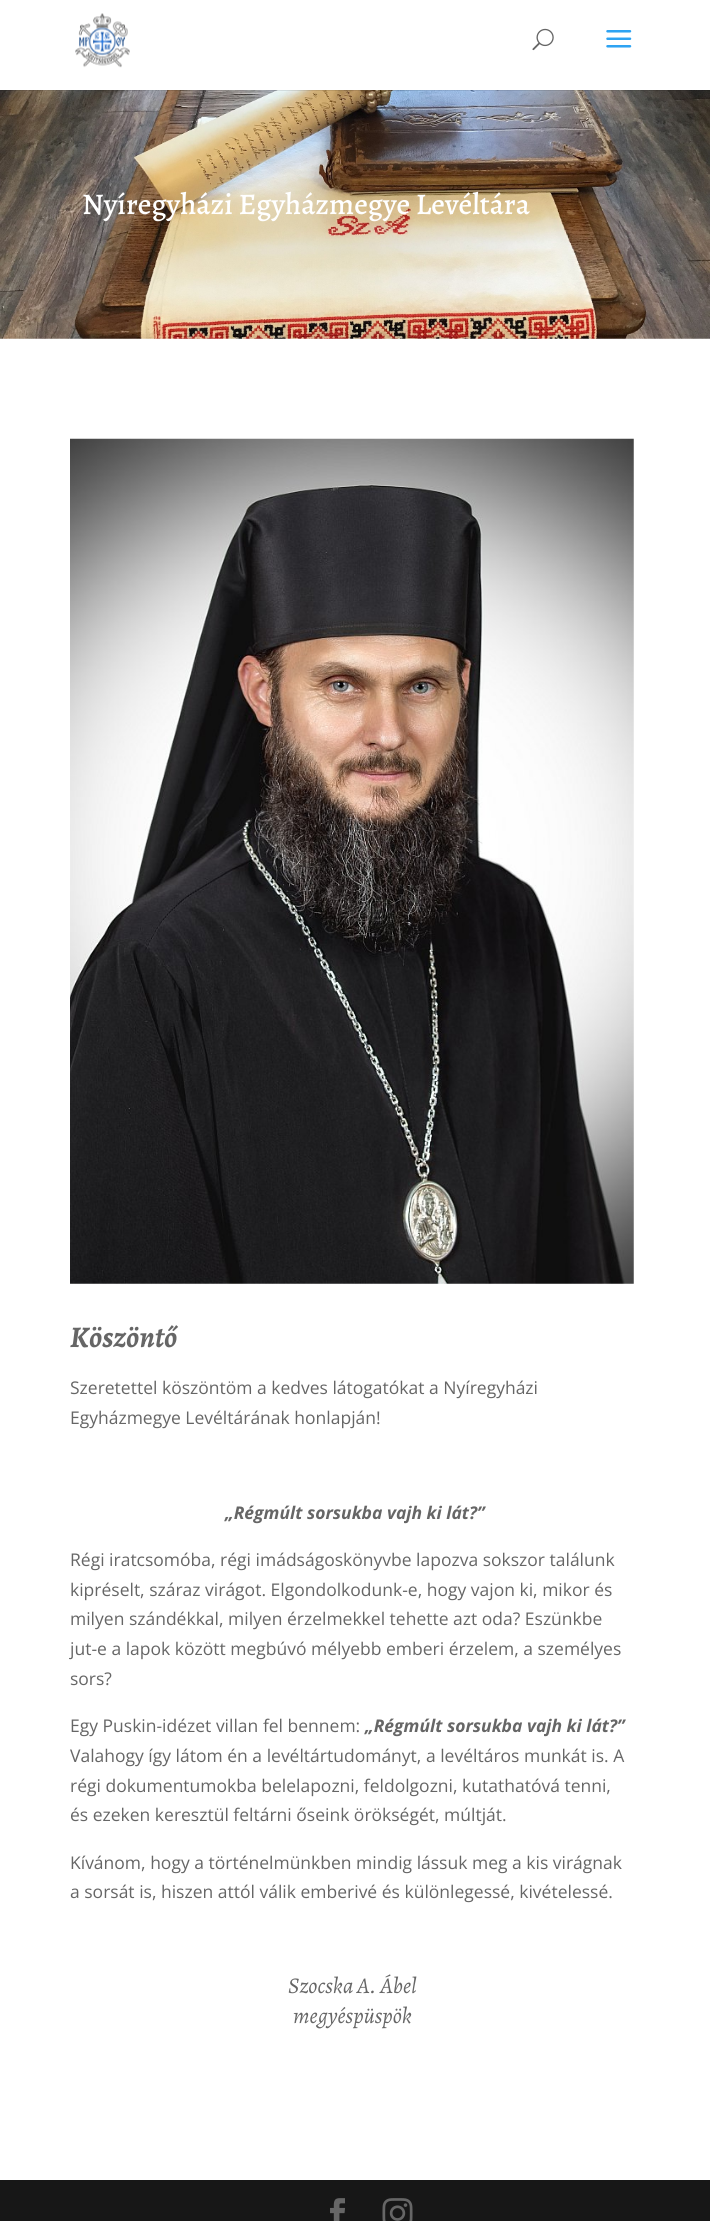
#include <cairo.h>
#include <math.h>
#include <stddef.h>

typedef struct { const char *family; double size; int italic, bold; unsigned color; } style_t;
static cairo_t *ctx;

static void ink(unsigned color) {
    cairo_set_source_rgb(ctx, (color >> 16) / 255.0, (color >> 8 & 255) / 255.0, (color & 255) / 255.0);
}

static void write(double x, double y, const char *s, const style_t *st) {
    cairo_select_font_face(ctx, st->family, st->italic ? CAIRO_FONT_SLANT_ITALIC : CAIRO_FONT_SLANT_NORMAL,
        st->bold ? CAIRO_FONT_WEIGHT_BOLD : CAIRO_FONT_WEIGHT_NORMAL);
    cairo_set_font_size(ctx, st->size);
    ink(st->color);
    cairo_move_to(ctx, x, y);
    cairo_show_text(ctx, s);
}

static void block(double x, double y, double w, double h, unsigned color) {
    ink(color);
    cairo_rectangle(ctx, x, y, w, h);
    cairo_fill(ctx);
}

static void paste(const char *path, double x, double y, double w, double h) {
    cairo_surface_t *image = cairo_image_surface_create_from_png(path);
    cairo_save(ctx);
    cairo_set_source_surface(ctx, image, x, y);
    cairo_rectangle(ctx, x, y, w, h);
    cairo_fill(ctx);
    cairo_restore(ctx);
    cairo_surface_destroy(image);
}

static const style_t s1 = {"Alegreya Medium", 30, 0, 0, 0xffffff};
static const style_t s2 = {"Alegreya", 30, 1, 1, 0x666666};
static const style_t s3 = {"Open Sans", 17.5, 0, 0, 0x666666};
static const style_t s4 = {"Open Sans", 17.5, 1, 1, 0x666666};
static const style_t s5 = {"Alegreya", 22.5, 1, 0, 0x666666};

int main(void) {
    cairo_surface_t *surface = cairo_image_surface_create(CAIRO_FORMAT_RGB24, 710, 2221);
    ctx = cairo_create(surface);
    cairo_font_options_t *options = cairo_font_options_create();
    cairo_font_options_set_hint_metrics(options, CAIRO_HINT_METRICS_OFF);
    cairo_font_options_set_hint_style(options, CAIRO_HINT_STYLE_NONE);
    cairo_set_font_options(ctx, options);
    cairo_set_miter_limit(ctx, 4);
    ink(0xffffff);
    cairo_paint(ctx);
    paste("pic4.png", 0, 90, 710, 249);
    cairo_set_source_rgba(ctx, 0, 0, 0, 0.1);
    cairo_rectangle(ctx, 0, 90, 710, 1);
    cairo_fill(ctx);
    paste("pic1.png", 75, 13, 55, 55);
    paste("pic2.png", 532, 28, 22, 23);
    paste("pic3.png", 606, 30, 26, 18);
    write(82, 214, "Nyíregyházi Egyházmegye Levéltára", &s1);
    paste("pic5.png", 70, 438, 564, 846);
    write(70, 1347, "Köszöntő", &s2);
    write(70, 1394, "Szeretettel köszöntöm a kedves látogatókat a Nyíregyházi", &s3);
    write(70, 1424, "Egyházmegye Levéltárának honlapján!", &s3);
    write(225, 1519, "„Régmúlt sorsukba vajh ki lát?”", &s4);
    write(70, 1566, "Régi iratcsomóba, régi imádságoskönyvbe lapozva sokszor találunk", &s3);
    write(70, 1596, "kipréselt, száraz virágot. Elgondolkodunk-e, hogy vajon ki, mikor és", &s3);
    write(70, 1625, "milyen szándékkal, milyen érzelmekkel tehette azt oda? Eszünkbe", &s3);
    write(70, 1655, "jut-e a lapok között megbúvó mélyebb emberi érzelem, a személyes", &s3);
    write(70, 1685, "sors?", &s3);
    write(70, 1732, "Egy Puskin-idézet villan fel bennem:", &s3);
    write(365, 1732, "„Régmúlt sorsukba vajh ki lát?”", &s4);
    write(70, 1762, "Valahogy így látom én a levéltártudományt, a levéltáros munkát is. A", &s3);
    write(70, 1792, "régi dokumentumokba belelapozni, feldolgozni, kutathatóvá tenni,", &s3);
    write(70, 1821, "és ezeken keresztül feltárni őseink örökségét, múltját.", &s3);
    write(70, 1869, "Kívánom, hogy a történelmünkben mindig lássuk meg a kis virágnak", &s3);
    write(70, 1898, "a sorsát is, hiszen attól válik emberivé és különlegessé, kivételessé.", &s3);
    write(288, 1993, "Szocska A. Ábel", &s5);
    write(293, 2023, "megyéspüspök", &s5);
    block(0, 2180, 710, 41, 0x171717);
    paste("pic6.png", 330, 2198, 15, 23);
    paste("pic7.png", 382, 2198, 31, 23);
    cairo_surface_write_to_png(surface, "screenshot.png");
    cairo_font_options_destroy(options);
    cairo_destroy(ctx);
    cairo_surface_destroy(surface);
    return 0;
}
